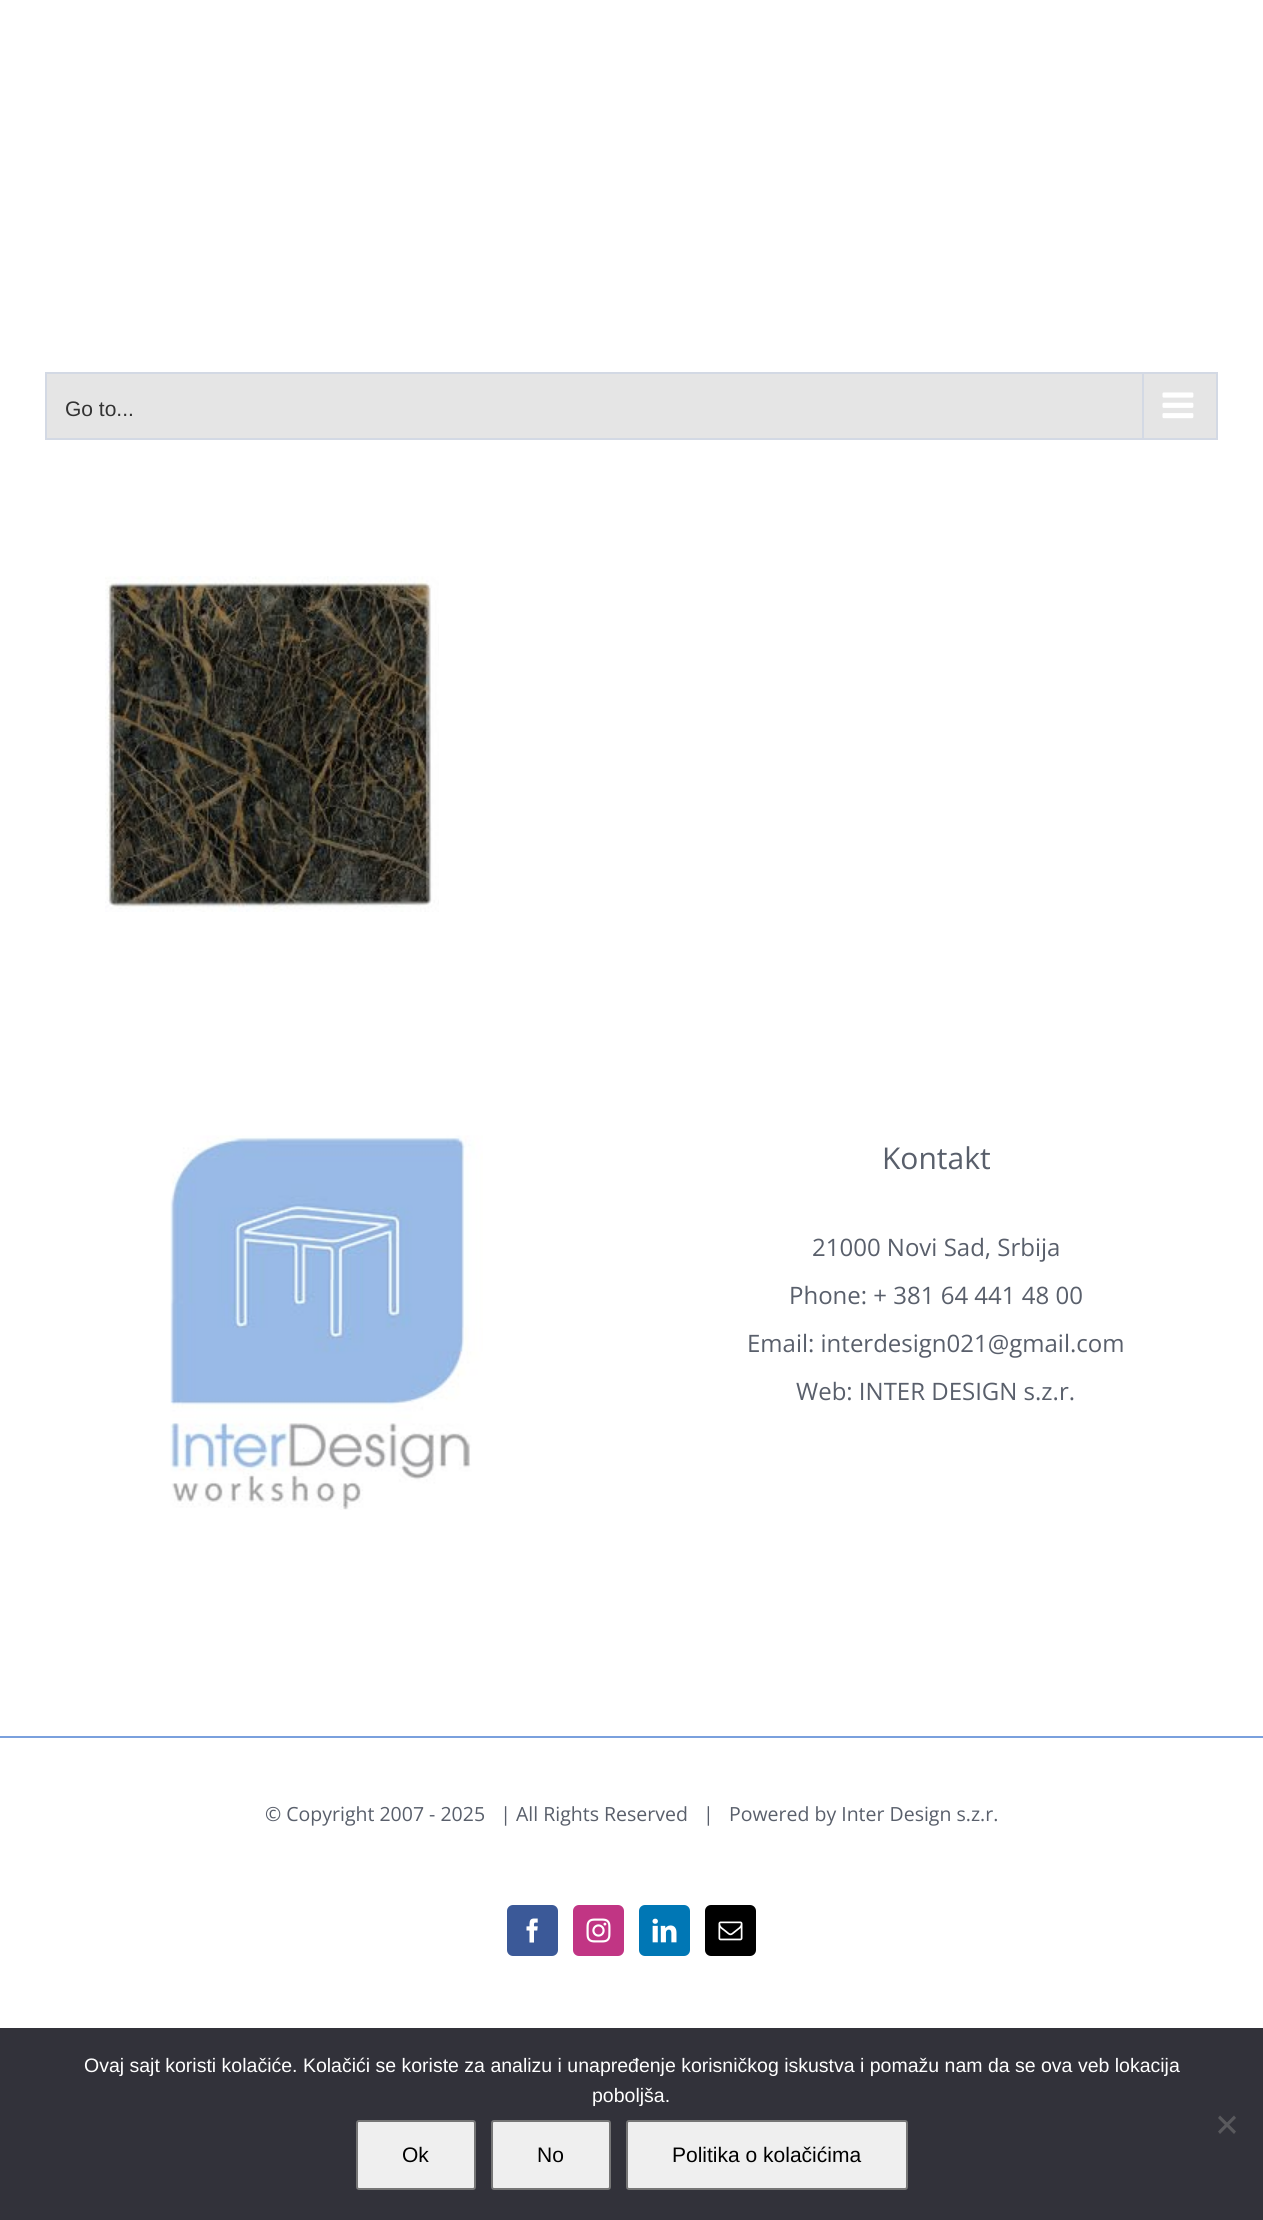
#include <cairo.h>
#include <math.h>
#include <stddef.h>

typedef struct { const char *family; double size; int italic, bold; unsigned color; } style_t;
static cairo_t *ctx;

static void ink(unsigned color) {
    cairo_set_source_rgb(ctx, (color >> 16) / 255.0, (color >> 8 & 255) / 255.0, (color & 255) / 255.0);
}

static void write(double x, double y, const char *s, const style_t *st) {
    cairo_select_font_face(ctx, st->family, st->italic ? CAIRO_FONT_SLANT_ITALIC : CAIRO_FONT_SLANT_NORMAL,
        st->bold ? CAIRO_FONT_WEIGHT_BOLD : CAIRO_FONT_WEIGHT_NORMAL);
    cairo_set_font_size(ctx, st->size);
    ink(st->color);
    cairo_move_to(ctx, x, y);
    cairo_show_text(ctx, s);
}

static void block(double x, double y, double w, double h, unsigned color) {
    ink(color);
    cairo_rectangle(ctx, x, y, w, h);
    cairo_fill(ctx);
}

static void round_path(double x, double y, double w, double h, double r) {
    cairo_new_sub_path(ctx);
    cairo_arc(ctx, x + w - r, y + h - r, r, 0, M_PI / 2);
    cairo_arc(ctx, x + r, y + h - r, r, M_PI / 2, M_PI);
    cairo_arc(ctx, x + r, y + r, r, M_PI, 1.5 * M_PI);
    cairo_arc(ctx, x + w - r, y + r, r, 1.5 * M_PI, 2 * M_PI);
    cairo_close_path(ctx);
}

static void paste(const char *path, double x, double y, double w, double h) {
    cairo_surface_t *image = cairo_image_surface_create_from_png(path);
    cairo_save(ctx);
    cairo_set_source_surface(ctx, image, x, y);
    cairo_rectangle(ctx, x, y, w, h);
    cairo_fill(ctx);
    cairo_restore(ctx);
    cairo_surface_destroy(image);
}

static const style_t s1 = {"Liberation Sans", 21, 0, 0, 0x333333};
static const style_t s2 = {"Open Sans", 30, 0, 0, 0x595f6b};
static const style_t s3 = {"Open Sans", 24, 0, 0, 0x595f6b};
static const style_t s4 = {"Open Sans", 19.5, 0, 0, 0x595f6b};
static const style_t s5 = {"Liberation Sans", 19.5, 0, 0, 0xffffff};
static const style_t s6 = {"Liberation Sans", 21, 0, 0, 0x000000};

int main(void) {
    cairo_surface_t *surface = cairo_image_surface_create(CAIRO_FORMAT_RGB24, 1263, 2220);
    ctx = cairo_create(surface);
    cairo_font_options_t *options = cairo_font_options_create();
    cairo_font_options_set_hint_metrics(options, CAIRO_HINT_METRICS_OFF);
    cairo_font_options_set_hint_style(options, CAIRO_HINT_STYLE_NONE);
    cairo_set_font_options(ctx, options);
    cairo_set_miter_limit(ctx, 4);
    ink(0xffffff);
    cairo_paint(ctx);
    ink(0xe5e5e5);
    cairo_rectangle(ctx, 46, 373, 1171, 66);
    cairo_fill_preserve(ctx);
    ink(0xd3d9e4);
    cairo_stroke(ctx);
    write(65, 416, "Go to...", &s1);
    block(1142, 374, 2, 64, 0xd3d9e4);
    paste("pic1.png", 1162, 392, 32, 27);
    paste("pic2.png", 105, 576, 334, 336);
    paste("pic3.png", 170, 1135, 313, 375);
    write(882, 1169, "Kontakt", &s2);
    write(812, 1256, "21000 Novi Sad, Srbija", &s3);
    write(789, 1304, "Phone: + 381 64 441 48 00", &s3);
    write(747, 1352, "Email: interdesign021@gmail.com", &s3);
    write(796, 1400, "Web: INTER DESIGN s.z.r.", &s3);
    block(0, 1736, 1263, 2, 0x7aa0dd);
    write(265, 1821, "© Copyright 2007 - 2025   | All Rights Reserved   |   Powered by Inter Design s.z.r.", &s4);
    ink(0x3b5998);
    round_path(508, 1906, 49, 49, 5);
    cairo_fill_preserve(ctx);
    cairo_stroke(ctx);
    paste("pic4.png", 526, 1918, 12, 25);
    ink(0xc13584);
    round_path(574, 1906, 49, 49, 5);
    cairo_fill_preserve(ctx);
    cairo_stroke(ctx);
    paste("pic5.png", 586, 1918, 25, 25);
    ink(0x0077b5);
    round_path(640, 1906, 49, 49, 5);
    cairo_fill_preserve(ctx);
    cairo_stroke(ctx);
    paste("pic6.png", 652, 1918, 25, 25);
    ink(0x000000);
    round_path(706, 1906, 49, 49, 5);
    cairo_fill_preserve(ctx);
    cairo_stroke(ctx);
    paste("pic7.png", 718, 1921, 25, 20);
    block(0, 2028, 1263, 192, 0x32323a);
    write(84, 2072, "Ovaj sajt koristi kolačiće. Kolačići se koriste za analizu i unapređenje korisničkog iskustva i pomažu nam da se ova veb lokacija", &s5);
    write(592, 2102, "poboljša.", &s5);
    ink(0x59595d);
    cairo_new_path(ctx);
    cairo_move_to(ctx, 1234, 2115.5);
    cairo_line_to(ctx, 1236, 2118);
    cairo_line_to(ctx, 1220, 2134);
    cairo_line_to(ctx, 1218, 2131.5);
    cairo_close_path(ctx);
    cairo_fill(ctx);
    cairo_new_path(ctx);
    cairo_move_to(ctx, 1218, 2118);
    cairo_line_to(ctx, 1220, 2115.5);
    cairo_line_to(ctx, 1236, 2131.5);
    cairo_line_to(ctx, 1234, 2134);
    cairo_close_path(ctx);
    cairo_fill(ctx);
    ink(0xefefef);
    round_path(357, 2121, 118, 68, 2);
    cairo_fill_preserve(ctx);
    ink(0x767676);
    cairo_stroke(ctx);
    write(402, 2162, "Ok", &s6);
    ink(0xefefef);
    round_path(492, 2121, 118, 68, 2);
    cairo_fill_preserve(ctx);
    ink(0x767676);
    cairo_stroke(ctx);
    write(537, 2162, "No", &s6);
    ink(0xefefef);
    round_path(627, 2121, 280, 68, 2);
    cairo_fill_preserve(ctx);
    ink(0x767676);
    cairo_stroke(ctx);
    write(672, 2162, "Politika o kolačićima", &s6);
    cairo_surface_write_to_png(surface, "screenshot.png");
    cairo_font_options_destroy(options);
    cairo_destroy(ctx);
    cairo_surface_destroy(surface);
    return 0;
}
